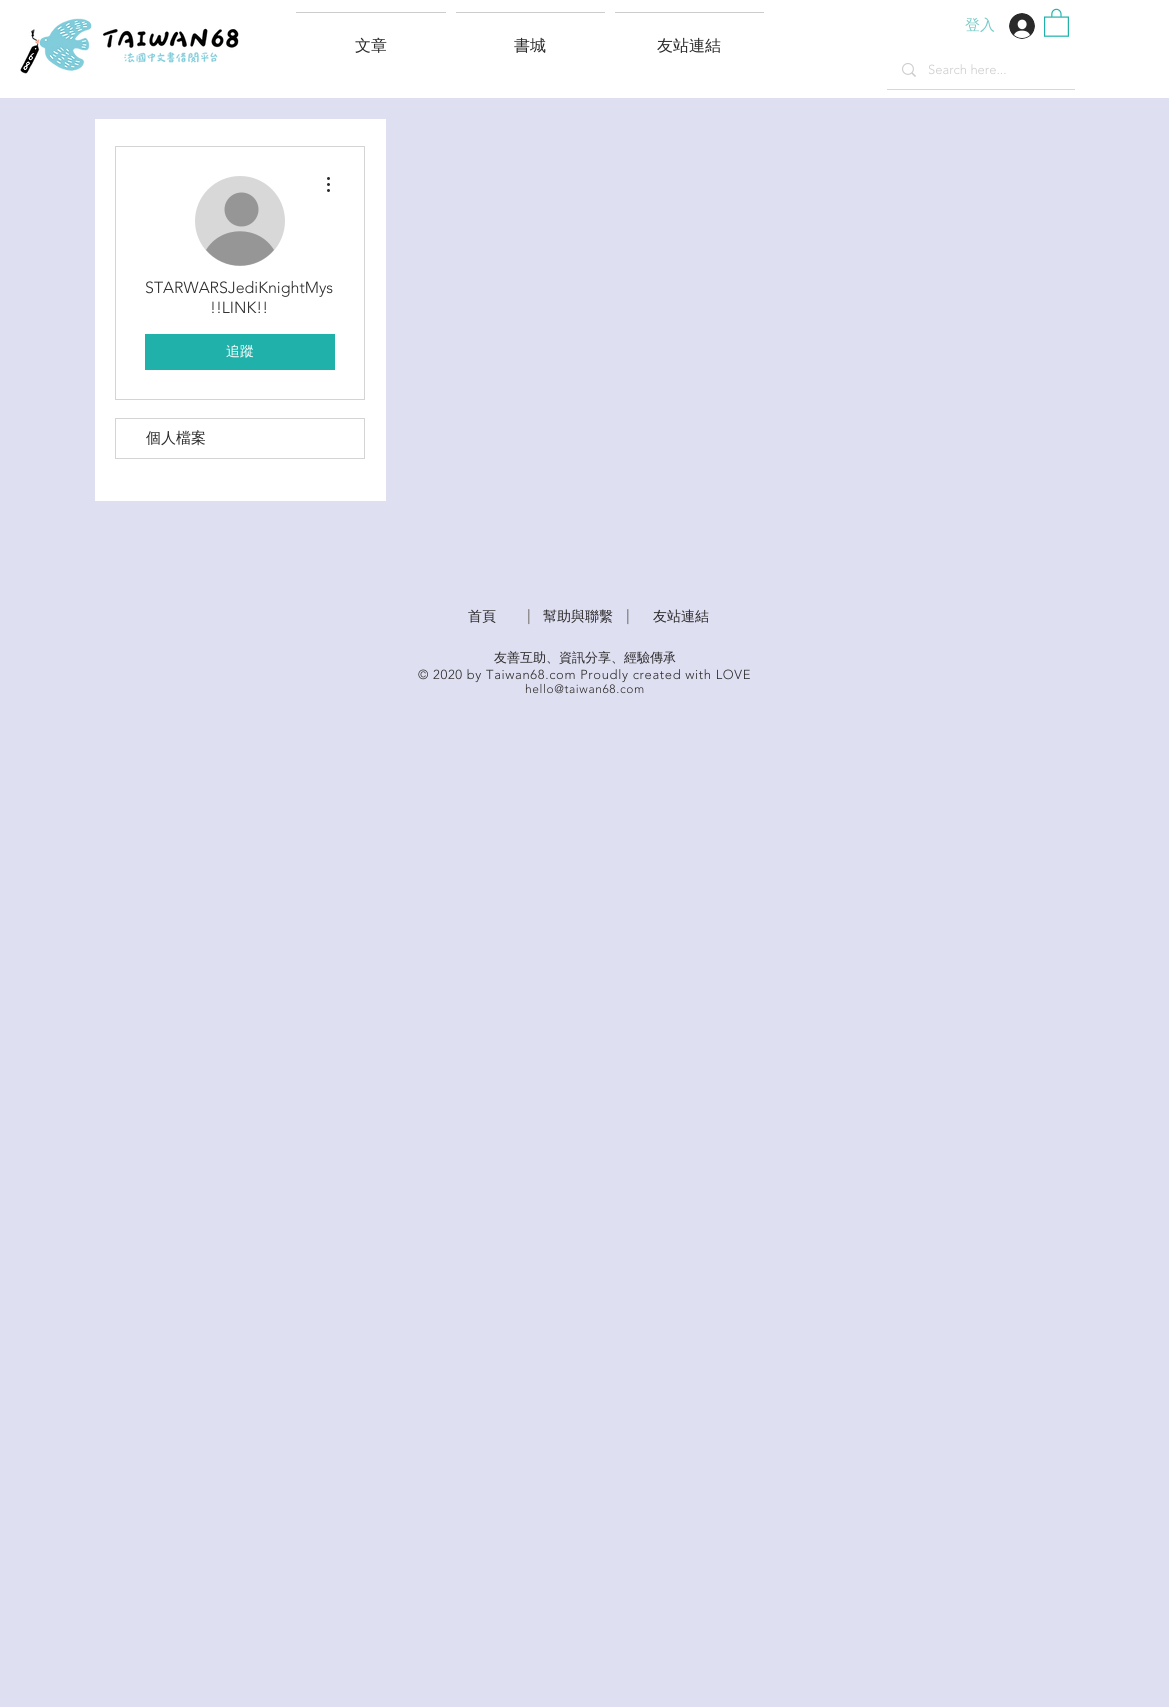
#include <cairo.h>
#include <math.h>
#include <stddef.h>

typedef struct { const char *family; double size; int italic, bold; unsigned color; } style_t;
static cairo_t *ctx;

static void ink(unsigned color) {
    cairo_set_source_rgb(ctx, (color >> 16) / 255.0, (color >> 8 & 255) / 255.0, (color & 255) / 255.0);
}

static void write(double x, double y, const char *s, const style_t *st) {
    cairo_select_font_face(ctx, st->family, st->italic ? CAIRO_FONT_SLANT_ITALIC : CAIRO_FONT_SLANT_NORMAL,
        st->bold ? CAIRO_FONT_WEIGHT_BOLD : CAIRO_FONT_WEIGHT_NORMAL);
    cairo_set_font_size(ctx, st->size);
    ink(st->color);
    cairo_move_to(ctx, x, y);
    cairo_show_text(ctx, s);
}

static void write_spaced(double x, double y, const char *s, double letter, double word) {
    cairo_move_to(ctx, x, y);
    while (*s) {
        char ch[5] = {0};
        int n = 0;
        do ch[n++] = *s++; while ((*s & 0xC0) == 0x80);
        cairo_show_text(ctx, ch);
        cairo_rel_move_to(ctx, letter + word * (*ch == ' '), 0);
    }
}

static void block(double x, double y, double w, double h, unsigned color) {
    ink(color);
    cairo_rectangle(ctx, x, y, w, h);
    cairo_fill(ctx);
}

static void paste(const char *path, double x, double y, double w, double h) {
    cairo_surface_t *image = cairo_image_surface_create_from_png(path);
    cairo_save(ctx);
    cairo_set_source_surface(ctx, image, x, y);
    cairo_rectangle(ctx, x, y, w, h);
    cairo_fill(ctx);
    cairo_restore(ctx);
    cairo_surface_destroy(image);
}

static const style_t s1 = {"WenQuanYi Zen Hei Medium", 16, 0, 0, 0x2a2a2a};
static const style_t s2 = {"WenQuanYi Zen Hei Medium", 15, 0, 0, 0x78ccc7};
static const style_t s3 = {"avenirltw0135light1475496 Light", 13, 0, 0, 0xcccccc};
static const style_t s4 = {"avenirltw0135light1475496 Light", 16, 0, 0, 0x2a2a2a};
static const style_t s5 = {"WenQuanYi Zen Hei Medium", 14, 0, 0, 0xffffff};
static const style_t s6 = {"WenQuanYi Zen Hei Medium", 15, 0, 0, 0x2a2a2a};
static const style_t s7 = {"WenQuanYi Zen Hei Medium", 14, 0, 0, 0x2a2a2a};
static const style_t s8 = {"WenQuanYi Zen Hei Medium", 15, 0, 0, 0x808080};
static const style_t s9 = {"WenQuanYi Zen Hei Medium", 13, 0, 0, 0x2a2a2a};

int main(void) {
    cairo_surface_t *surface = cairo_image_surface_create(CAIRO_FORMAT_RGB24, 1169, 1707);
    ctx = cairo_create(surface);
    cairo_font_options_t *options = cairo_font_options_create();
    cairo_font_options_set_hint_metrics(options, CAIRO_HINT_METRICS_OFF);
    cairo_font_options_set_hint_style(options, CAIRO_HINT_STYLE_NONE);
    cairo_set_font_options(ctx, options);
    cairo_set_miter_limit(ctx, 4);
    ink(0xdfdff2);
    cairo_paint(ctx);
    block(0, 0, 1169, 98, 0xffffff);
    paste("pic1.png", 20, 18, 219, 56);
    block(296, 12, 150, 1, 0xcccccc);
    write(355, 51, "文章", &s1);
    block(456, 12, 149, 1, 0xcccccc);
    write(514, 51, "書城", &s1);
    block(615, 12, 149, 1, 0xcccccc);
    write(657, 51, "友站連結", &s1);
    write(965, 30, "登入", &s2);
    paste("pic2.png", 1009, 13, 26, 26);
    paste("pic3.png", 1044, 8, 25, 29);
    block(887, 89, 188, 1, 0xd7d7d7);
    paste("pic4.png", 902, 63, 14, 14);
    write(928, 74, "Search here...", &s3);
    block(95, 119, 291, 382, 0xffffff);
    cairo_rectangle(ctx, 115.5, 146.5, 249, 253);
    ink(0xd4d4d4);
    cairo_set_line_width(ctx, 1);
    cairo_stroke(ctx);
    ink(0xd8d8d8);
    cairo_arc(ctx, 240, 221, 45, 0, 2 * M_PI);
    cairo_fill(ctx);
    ink(0x969696);
    cairo_arc(ctx, 241.5, 209.5, 17, 0, 2 * M_PI);
    cairo_fill(ctx);
    cairo_new_path(ctx);
    cairo_move_to(ctx, 274, 250);
    cairo_curve_to(ctx, 256, 271, 224, 271, 206, 250);
    cairo_curve_to(ctx, 221, 225, 259, 225, 274, 250);
    cairo_close_path(ctx);
    cairo_fill(ctx);
    paste("pic5.png", 327, 177, 3, 15);
    write(145, 293, "STARWARSJediKnightMys", &s4);
    write(210, 313, "!!LINK!!", &s4);
    block(145, 334, 190, 36, 0x20b2aa);
    write(226, 356, "追蹤", &s5);
    cairo_rectangle(ctx, 115.5, 418.5, 249, 40);
    ink(0xd4d4d4);
    cairo_stroke(ctx);
    write(146, 443, "個人檔案", &s6);
    write(468, 621, "首頁", &s7);
    write(521, 622, "┃", &s8);
    write(543, 621, "幫助與聯繫", &s7);
    write(620, 622, "┃", &s8);
    write(653, 621, "友站連結", &s7);
    write(494, 662, "友善互助、資訊分享、經驗傳承", &s9);
    cairo_select_font_face(ctx, "avenirltw0135light1475496 Light", CAIRO_FONT_SLANT_NORMAL, CAIRO_FONT_WEIGHT_NORMAL);
    write_spaced(418, 679, "© 2020 by Taiwan68.com Proudly created with LOVE", 0.65, 0);
    cairo_set_font_size(ctx, 12);
    write_spaced(525, 693, "hello@taiwan68.com", 0.6, 0);
    cairo_surface_write_to_png(surface, "screenshot.png");
    cairo_font_options_destroy(options);
    cairo_destroy(ctx);
    cairo_surface_destroy(surface);
    return 0;
}
